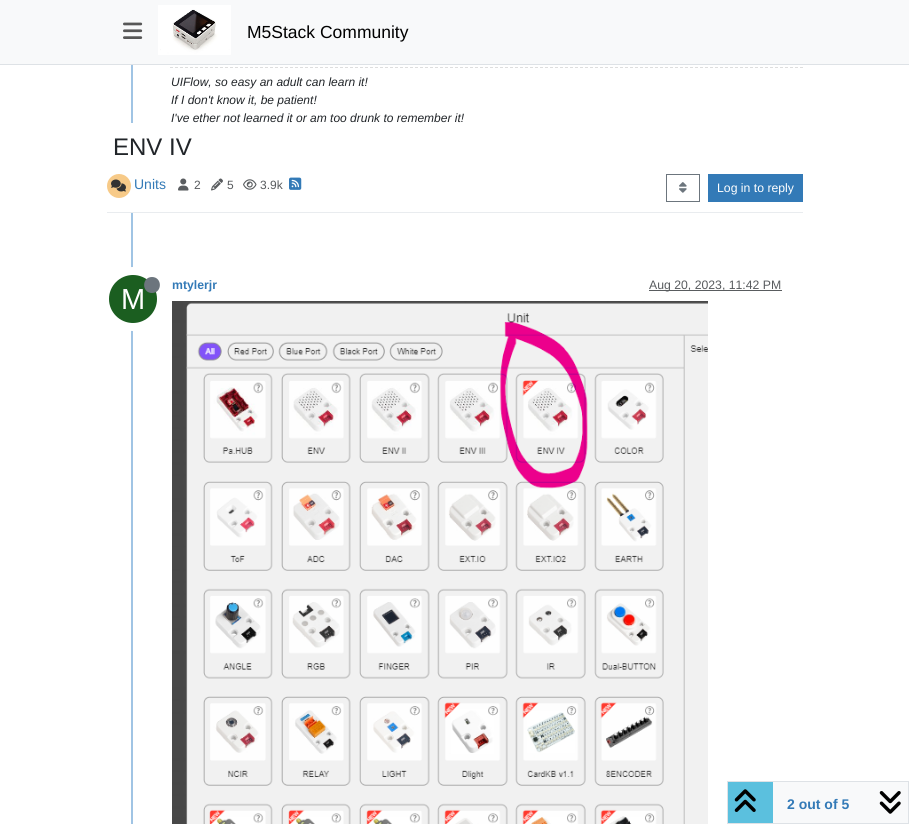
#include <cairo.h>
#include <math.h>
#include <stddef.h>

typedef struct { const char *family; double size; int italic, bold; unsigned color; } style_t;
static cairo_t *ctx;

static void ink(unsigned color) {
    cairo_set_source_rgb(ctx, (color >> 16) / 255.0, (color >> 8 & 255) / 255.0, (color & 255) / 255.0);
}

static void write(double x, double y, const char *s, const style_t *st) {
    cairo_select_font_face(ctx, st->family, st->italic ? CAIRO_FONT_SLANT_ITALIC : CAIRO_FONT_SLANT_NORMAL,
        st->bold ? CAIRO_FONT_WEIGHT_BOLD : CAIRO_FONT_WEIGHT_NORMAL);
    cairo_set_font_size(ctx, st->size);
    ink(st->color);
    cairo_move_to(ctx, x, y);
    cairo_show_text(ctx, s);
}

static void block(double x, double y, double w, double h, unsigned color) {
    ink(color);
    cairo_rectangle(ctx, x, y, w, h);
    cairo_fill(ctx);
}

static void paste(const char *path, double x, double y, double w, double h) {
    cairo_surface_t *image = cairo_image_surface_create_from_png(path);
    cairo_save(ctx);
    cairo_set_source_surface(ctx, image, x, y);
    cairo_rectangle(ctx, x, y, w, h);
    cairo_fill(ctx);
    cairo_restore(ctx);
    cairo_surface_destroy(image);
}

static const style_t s1 = {"Liberation Sans", 17.5, 0, 0, 0x000000};
static const style_t s2 = {"Liberation Sans", 12, 1, 0, 0x212529};
static const style_t s3 = {"Liberation Sans", 12.25, 0, 1, 0x337ab7};
static const style_t s4 = {"Liberation Sans", 12.25, 0, 0, 0x585b5e};
static const style_t s5 = {"Liberation Sans", 29, 0, 0, 0xffffff};
static const style_t s6 = {"Liberation Sans", 24, 0, 0, 0x212529};
static const style_t s7 = {"Liberation Sans", 14, 0, 0, 0x337ab7};
static const style_t s8 = {"Liberation Sans", 12, 0, 0, 0x585b5e};
static const style_t s9 = {"Liberation Sans", 12.25, 0, 0, 0xffffff};
static const style_t s10 = {"Liberation Sans", 14, 0, 1, 0x337ab7};

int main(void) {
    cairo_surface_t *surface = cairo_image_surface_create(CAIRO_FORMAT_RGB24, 909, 824);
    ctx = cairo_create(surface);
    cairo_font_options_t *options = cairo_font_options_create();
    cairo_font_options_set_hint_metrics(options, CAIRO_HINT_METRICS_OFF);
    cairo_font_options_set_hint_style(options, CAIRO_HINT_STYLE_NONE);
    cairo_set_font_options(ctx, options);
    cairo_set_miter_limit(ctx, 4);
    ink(0xffffff);
    cairo_paint(ctx);
    block(0, 0, 909, 64, 0xf8f9fa);
    block(0, 64, 909, 1, 0xdee2e6);
    paste("pic1.png", 123, 22, 20, 17);
    paste("pic2.png", 158, 5, 73, 50);
    write(247, 38, "M5Stack Community", &s1);
    block(131, 65, 2, 759, 0xa0c4e4);
    cairo_new_path(ctx);
    cairo_move_to(ctx, 170, 67.5);
    cairo_line_to(ctx, 803, 67.5);
    ink(0xdedede);
    cairo_set_line_width(ctx, 1);
    cairo_set_dash(ctx, (double[]){3, 2}, 2, 0);
    cairo_stroke(ctx);
    write(171, 86, "UIFlow, so easy an adult can learn it!", &s2);
    write(171, 104, "If I don't know it, be patient!", &s2);
    write(171, 122, "I've ether not learned it or am too drunk to remember it!", &s2);
    write(172, 289, "mtylerjr", &s3);
    block(649, 290, 133, 1, 0x595c5f);
    write(649, 289, "Aug 20, 2023, 11:42 PM", &s4);
    cairo_new_path(ctx);
    cairo_arc(ctx, 133, 299, 28, 0, 2 * M_PI);
    ink(0xffffff);
    cairo_set_line_width(ctx, 8);
    cairo_set_dash(ctx, NULL, 0, 0);
    cairo_stroke(ctx);
    ink(0x1b5e20);
    cairo_arc(ctx, 133, 299, 24, 0, 2 * M_PI);
    cairo_fill(ctx);
    ink(0x6c757d);
    cairo_new_path(ctx);
    cairo_move_to(ctx, 152, 293);
    cairo_curve_to(ctx, 162.5, 293, 162.5, 277, 152, 277);
    cairo_curve_to(ctx, 141.5, 277, 141.5, 293, 152, 293);
    cairo_close_path(ctx);
    cairo_fill(ctx);
    write(121, 309, "M", &s5);
    paste("pic3.png", 172, 301, 536, 523);
    block(131, 123, 2, 89, 0xffffff);
    write(113, 155, "ENV IV", &s6);
    block(107, 212, 696, 1, 0xe9ecef);
    ink(0xf7ca88);
    cairo_new_path(ctx);
    cairo_arc(ctx, 119, 186, 12, 0, 2 * M_PI);
    cairo_fill(ctx);
    paste("pic4.png", 111, 179, 15, 13);
    write(134, 189, "Units", &s7);
    paste("pic5.png", 178, 178, 11, 13);
    write(194, 189, "2", &s8);
    paste("pic6.png", 211, 178, 12, 13);
    write(227, 189, "5", &s8);
    paste("pic7.png", 243, 179, 14, 11);
    write(260, 189, "3.9k", &s8);
    paste("pic8.png", 289, 177, 13, 13);
    cairo_rectangle(ctx, 666.5, 174.5, 33, 27);
    ink(0x6c757d);
    cairo_set_line_width(ctx, 1);
    cairo_stroke(ctx);
    paste("pic9.png", 679, 182, 8, 11);
    block(708, 174, 95, 28, 0x337ab7);
    write(717, 192, "Log in to reply", &s9);
    block(773, 782, 135, 41, 0xf8f9fa);
    cairo_rectangle(ctx, 727.5, 781.5, 181, 42);
    ink(0xdee2e6);
    cairo_stroke(ctx);
    block(728, 782, 45, 41, 0x5bc0de);
    paste("pic10.png", 734, 789, 22, 23);
    write(787, 809, "2 out of 5", &s10);
    paste("pic11.png", 879, 791, 22, 23);
    cairo_surface_write_to_png(surface, "screenshot.png");
    cairo_font_options_destroy(options);
    cairo_destroy(ctx);
    cairo_surface_destroy(surface);
    return 0;
}
